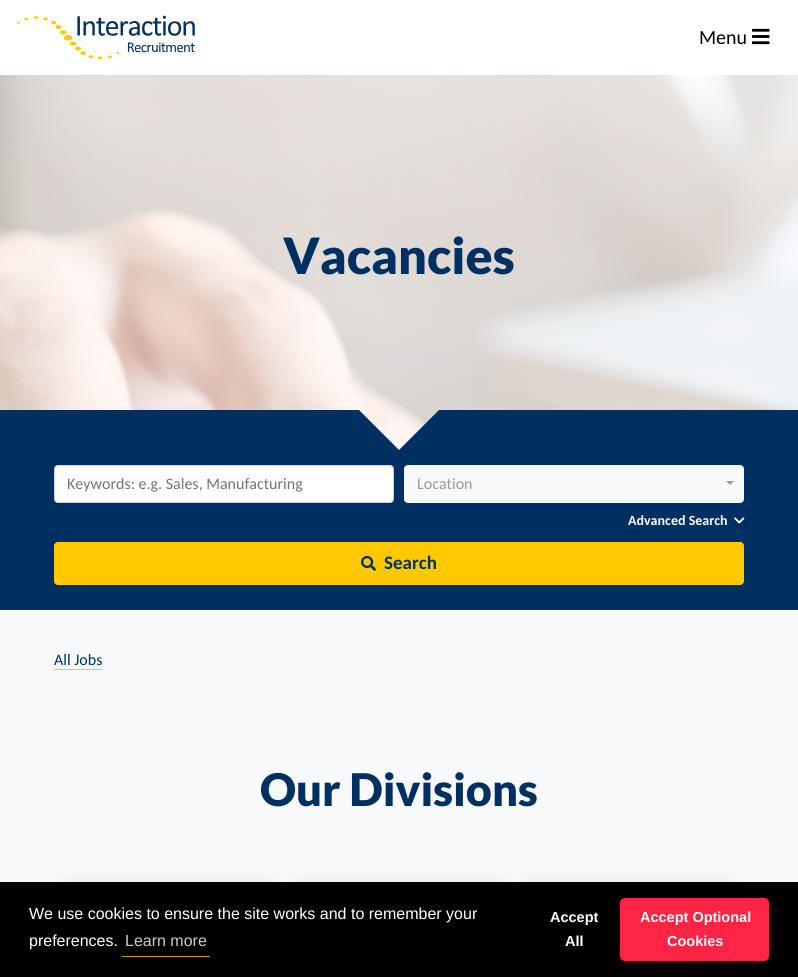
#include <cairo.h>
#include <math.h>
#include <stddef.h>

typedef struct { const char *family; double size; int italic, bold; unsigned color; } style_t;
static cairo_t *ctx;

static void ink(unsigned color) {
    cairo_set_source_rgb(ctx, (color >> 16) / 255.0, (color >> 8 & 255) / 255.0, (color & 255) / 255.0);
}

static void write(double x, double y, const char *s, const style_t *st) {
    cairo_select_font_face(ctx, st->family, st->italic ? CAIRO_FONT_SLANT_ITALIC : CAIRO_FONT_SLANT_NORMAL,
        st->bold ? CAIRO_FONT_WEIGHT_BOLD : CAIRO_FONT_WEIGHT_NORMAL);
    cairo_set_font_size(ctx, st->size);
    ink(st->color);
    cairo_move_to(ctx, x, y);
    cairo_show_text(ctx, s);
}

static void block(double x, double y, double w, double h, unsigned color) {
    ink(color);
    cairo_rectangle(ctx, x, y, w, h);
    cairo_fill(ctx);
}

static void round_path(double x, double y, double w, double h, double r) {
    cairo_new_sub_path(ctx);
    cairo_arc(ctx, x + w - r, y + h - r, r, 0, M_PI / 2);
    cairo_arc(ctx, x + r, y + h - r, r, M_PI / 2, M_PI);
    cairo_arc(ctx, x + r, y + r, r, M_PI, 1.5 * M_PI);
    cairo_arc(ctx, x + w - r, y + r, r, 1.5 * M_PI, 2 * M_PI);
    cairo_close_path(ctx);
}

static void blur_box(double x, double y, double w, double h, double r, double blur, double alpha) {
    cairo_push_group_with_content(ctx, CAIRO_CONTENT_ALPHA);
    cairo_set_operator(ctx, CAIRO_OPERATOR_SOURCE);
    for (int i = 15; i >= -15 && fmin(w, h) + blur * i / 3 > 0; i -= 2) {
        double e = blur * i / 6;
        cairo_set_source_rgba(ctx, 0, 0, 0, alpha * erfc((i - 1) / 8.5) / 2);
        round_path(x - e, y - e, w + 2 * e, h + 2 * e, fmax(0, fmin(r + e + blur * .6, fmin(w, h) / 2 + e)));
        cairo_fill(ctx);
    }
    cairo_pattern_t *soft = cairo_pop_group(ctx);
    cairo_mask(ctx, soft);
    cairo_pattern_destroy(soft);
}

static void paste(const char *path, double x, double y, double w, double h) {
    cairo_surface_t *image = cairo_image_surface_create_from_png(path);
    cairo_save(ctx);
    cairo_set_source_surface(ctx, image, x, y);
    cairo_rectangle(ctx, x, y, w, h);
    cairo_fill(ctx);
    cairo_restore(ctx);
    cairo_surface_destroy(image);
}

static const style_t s1 = {"Carlito", 20, 0, 0, 0x000000};
static const style_t s2 = {"Lato Black", 50, 0, 0, 0x003062};
static const style_t s3 = {"Carlito", 16, 0, 0, 0x6c757d};
static const style_t s4 = {"Carlito", 16, 0, 0, 0x999999};
static const style_t s5 = {"Carlito", 14, 0, 1, 0xffffff};
static const style_t s6 = {"Carlito", 19, 0, 1, 0x003062};
static const style_t s7 = {"Carlito", 16, 0, 0, 0x003062};
static const style_t s8 = {"Lato Black", 45, 0, 0, 0x003062};
static const style_t s9 = {"Liberation Sans", 16, 0, 0, 0xffffff};
static const style_t s10 = {"Liberation Sans", 16, 0, 0, 0xcccccc};
static const style_t s11 = {"Liberation Sans", 14.5, 0, 1, 0xffffff};

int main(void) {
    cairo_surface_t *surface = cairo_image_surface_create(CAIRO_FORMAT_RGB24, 798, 977);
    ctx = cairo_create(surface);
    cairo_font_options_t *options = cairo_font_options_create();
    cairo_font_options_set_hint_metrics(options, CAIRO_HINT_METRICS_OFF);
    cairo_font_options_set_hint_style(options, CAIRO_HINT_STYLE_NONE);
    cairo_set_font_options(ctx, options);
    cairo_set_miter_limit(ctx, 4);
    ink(0x003062);
    cairo_paint(ctx);
    block(0, 0, 798, 75, 0xffffff);
    paste("pic1.png", 17, 15, 178, 45);
    write(699, 44, "Menu", &s1);
    paste("pic2.png", 752, 28, 18, 17);
    paste("pic3.png", 0, 75, 798, 375);
    write(283, 274, "Vacancies", &s2);
    block(0, 410, 359, 40, 0x003062);
    cairo_new_path(ctx);
    cairo_move_to(ctx, 439, 410);
    cairo_line_to(ctx, 439, 450);
    cairo_line_to(ctx, 399, 450);
    cairo_close_path(ctx);
    cairo_fill(ctx);
    cairo_new_path(ctx);
    cairo_move_to(ctx, 359, 450);
    cairo_line_to(ctx, 359, 410);
    cairo_line_to(ctx, 399, 450);
    cairo_close_path(ctx);
    cairo_fill(ctx);
    block(439, 410, 359, 40, 0x003062);
    ink(0xffffff);
    round_path(54.5, 465.5, 339, 37, 3.5);
    cairo_fill_preserve(ctx);
    ink(0xced4da);
    cairo_set_line_width(ctx, 1);
    cairo_stroke(ctx);
    write(67, 489, "Keywords: e.g. Sales, Manufacturing", &s3);
    ink(0xf8f9fa);
    round_path(404.5, 465.5, 339, 37, 3.5);
    cairo_fill_preserve(ctx);
    cairo_stroke(ctx);
    write(417, 489, "Location", &s4);
    cairo_new_path(ctx);
    cairo_move_to(ctx, 726, 481);
    cairo_line_to(ctx, 734, 481);
    cairo_line_to(ctx, 730, 485);
    cairo_close_path(ctx);
    cairo_fill(ctx);
    write(628, 525, "Advanced Search", &s5);
    paste("pic4.png", 734, 517, 11, 7);
    ink(0xfec900);
    round_path(54, 542, 690, 43, 4);
    cairo_fill(ctx);
    paste("pic5.png", 361, 555, 15, 16);
    write(384, 569, "Search", &s6);
    block(0, 610, 798, 272, 0xf8f9fa);
    write(54, 665, "All Jobs", &s7);
    block(54, 669, 48, 1, 0xfec900);
    write(260, 806, "Our Divisions", &s8);
    ink(0x000000);
    blur_box(69, 890, 200, 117, 0, 10, 0.19);
    blur_box(299, 890, 200, 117, 0, 10, 0.19);
    blur_box(529, 890, 200, 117, 0, 10, 0.19);
    block(0, 882, 798, 95, 0x000000);
    write(29, 919, "We use cookies to ensure the site works and to remember your", &s9);
    write(29, 946, "preferences.", &s9);
    block(122, 956, 88, 1, 0xcba100);
    write(125, 946, "Learn more", &s10);
    write(550, 922, "Accept", &s11);
    write(565, 946, "All", &s11);
    ink(0xff2344);
    round_path(620, 898, 149, 63, 5);
    cairo_fill(ctx);
    write(640, 922, "Accept Optional", &s11);
    write(667, 946, "Cookies", &s11);
    cairo_surface_write_to_png(surface, "screenshot.png");
    cairo_font_options_destroy(options);
    cairo_destroy(ctx);
    cairo_surface_destroy(surface);
    return 0;
}
